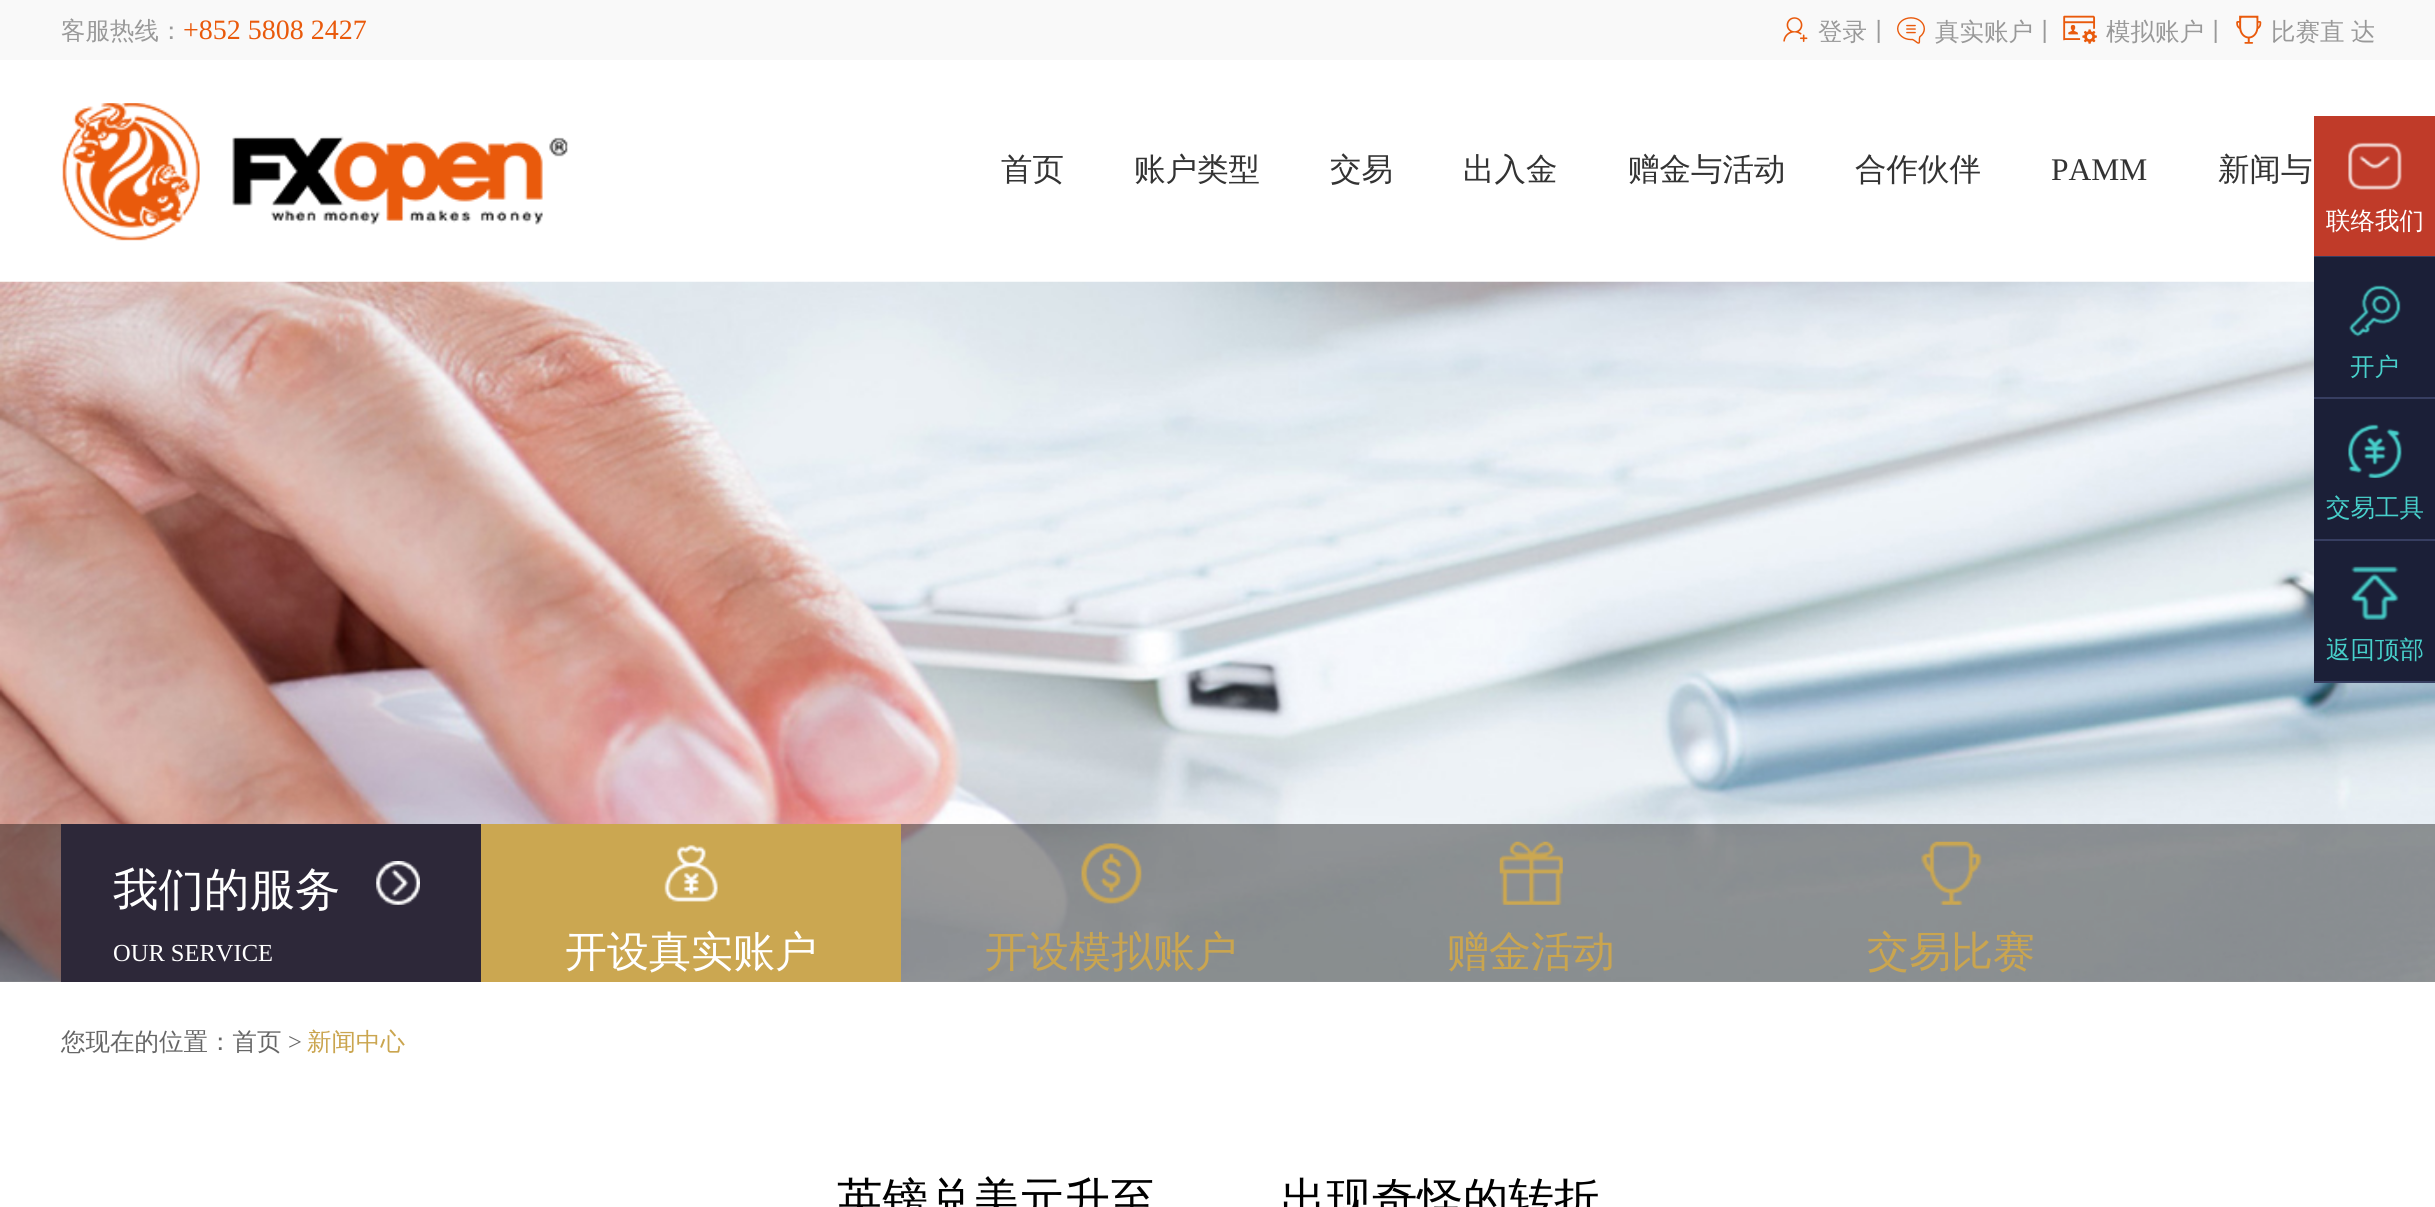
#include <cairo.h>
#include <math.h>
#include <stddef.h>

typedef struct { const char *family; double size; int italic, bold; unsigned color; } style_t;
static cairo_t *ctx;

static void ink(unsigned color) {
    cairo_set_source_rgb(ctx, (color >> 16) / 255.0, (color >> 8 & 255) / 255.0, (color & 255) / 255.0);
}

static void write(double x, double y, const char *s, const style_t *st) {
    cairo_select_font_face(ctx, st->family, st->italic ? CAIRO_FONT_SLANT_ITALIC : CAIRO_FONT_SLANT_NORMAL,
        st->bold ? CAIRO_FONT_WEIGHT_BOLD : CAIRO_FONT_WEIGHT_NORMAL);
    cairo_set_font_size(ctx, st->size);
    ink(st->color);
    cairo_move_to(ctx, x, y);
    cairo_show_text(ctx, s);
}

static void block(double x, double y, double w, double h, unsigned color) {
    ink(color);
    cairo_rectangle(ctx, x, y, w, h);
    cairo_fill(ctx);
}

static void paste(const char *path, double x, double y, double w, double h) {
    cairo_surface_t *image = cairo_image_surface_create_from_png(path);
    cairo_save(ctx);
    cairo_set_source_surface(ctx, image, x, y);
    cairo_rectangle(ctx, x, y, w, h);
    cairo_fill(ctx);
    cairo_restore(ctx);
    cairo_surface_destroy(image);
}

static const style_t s1 = {"WenQuanYi Zen Hei Medium", 24.5, 0, 0, 0x999999};
static const style_t s2 = {"Liberation Serif", 28, 0, 0, 0xe95a0c};
static const style_t s3 = {"WenQuanYi Zen Hei Medium", 31.5, 0, 0, 0x333333};
static const style_t s4 = {"Liberation Serif", 31.5, 0, 0, 0x333333};
static const style_t s5 = {"WenQuanYi Zen Hei Medium", 24.5, 0, 0, 0xffffff};
static const style_t s6 = {"WenQuanYi Zen Hei Medium", 24.5, 0, 0, 0x47d0cb};
static const style_t s7 = {"WenQuanYi Zen Hei Medium", 45.5, 0, 0, 0xffffff};
static const style_t s8 = {"Liberation Serif", 24.5, 0, 0, 0xffffff};
static const style_t s9 = {"WenQuanYi Zen Hei Medium", 42, 0, 0, 0xffffff};
static const style_t s10 = {"WenQuanYi Zen Hei Medium", 42, 0, 0, 0xcaa54f};
static const style_t s11 = {"WenQuanYi Zen Hei Medium", 24.5, 0, 0, 0x666666};
static const style_t s12 = {"Liberation Serif", 24.5, 0, 0, 0x666666};
static const style_t s13 = {"WenQuanYi Zen Hei Medium", 24.5, 0, 0, 0xcaa54f};
static const style_t s14 = {"WenQuanYi Zen Hei Medium", 45.5, 0, 0, 0x000000};

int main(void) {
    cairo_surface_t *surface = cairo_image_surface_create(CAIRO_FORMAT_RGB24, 2435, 1207);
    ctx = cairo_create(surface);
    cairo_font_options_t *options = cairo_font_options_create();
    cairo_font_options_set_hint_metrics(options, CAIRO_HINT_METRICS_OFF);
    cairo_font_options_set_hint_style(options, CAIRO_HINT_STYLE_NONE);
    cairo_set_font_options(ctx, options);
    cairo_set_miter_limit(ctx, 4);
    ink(0xffffff);
    cairo_paint(ctx);
    block(0, 0, 2435, 60, 0xf9f9f9);
    write(61, 39, "客服热线：", &s1);
    write(183, 39, "+852 5808 2427", &s2);
    paste("pic1.png", 1783, 17, 25, 25);
    write(1818, 40, "登录丨", &s1);
    paste("pic2.png", 1897, 17, 28, 27);
    write(1935, 40, "真实账户丨", &s1);
    paste("pic3.png", 2063, 15, 34, 29);
    write(2106, 40, "模拟账户丨", &s1);
    paste("pic4.png", 2236, 15, 26, 29);
    write(2271, 40, "比赛直", &s1);
    write(2351, 40, "达", &s1);
    paste("pic5.png", 62, 103, 506, 138);
    write(1001, 180, "首页", &s3);
    write(1134, 180, "账户类型", &s3);
    write(1330, 180, "交易", &s3);
    write(1463, 180, "出入金", &s3);
    write(1628, 180, "赠金与活动", &s3);
    write(1855, 180, "合作伙伴", &s3);
    write(2051, 180, "PAMM", &s4);
    write(2218, 180, "新闻与", &s3);
    block(2314, 116, 121, 140, 0xc03b29);
    block(2314, 256, 121, 1, 0x373e61);
    paste("pic6.png", 2348, 142, 54, 48);
    write(2326, 229, "联络我们", &s5);
    paste("pic10.png", 0, 281, 2435, 701);
    block(2314, 257, 121, 140, 0x1b1f37);
    block(2314, 397, 121, 2, 0x373e61);
    paste("pic7.png", 2349, 285, 52, 52);
    write(2350, 375, "开户", &s6);
    block(2314, 399, 121, 140, 0x1b1f37);
    block(2314, 539, 121, 2, 0x373e61);
    paste("pic8.png", 2348, 424, 54, 54);
    write(2326, 516, "交易工具", &s6);
    block(2314, 541, 121, 140, 0x1b1f37);
    block(2314, 681, 121, 2, 0x373e61);
    paste("pic9.png", 2351, 566, 48, 54);
    write(2326, 658, "返回顶部", &s6);
    cairo_set_source_rgba(ctx, 0, 0, 0, 0.4);
    cairo_rectangle(ctx, 0, 824, 2435, 158);
    cairo_fill(ctx);
    block(61, 824, 420, 158, 0x2d2839);
    write(113, 905, "我们的服务", &s7);
    paste("pic11.png", 376, 861, 44, 44);
    write(113, 961, "OUR SERVICE", &s8);
    block(481, 824, 420, 158, 0xcba751);
    paste("pic12.png", 664, 844, 54, 58);
    write(565, 966, "开设真实账户", &s9);
    paste("pic13.png", 1081, 843, 62, 62);
    write(985, 966, "开设模拟账户", &s10);
    paste("pic14.png", 1499, 841, 64, 64);
    write(1447, 966, "赠金活动", &s10);
    paste("pic15.png", 1921, 841, 61, 64);
    write(1867, 966, "交易比赛", &s10);
    write(61, 1050, "您现在的位置：首页", &s11);
    write(288, 1050, ">", &s12);
    write(307, 1050, "新闻中心", &s13);
    write(837, 1215, "英镑兑美元升至", &s14);
    write(1281, 1215, "出现奇怪的转折", &s14);
    cairo_surface_write_to_png(surface, "screenshot.png");
    cairo_font_options_destroy(options);
    cairo_destroy(ctx);
    cairo_surface_destroy(surface);
    return 0;
}
